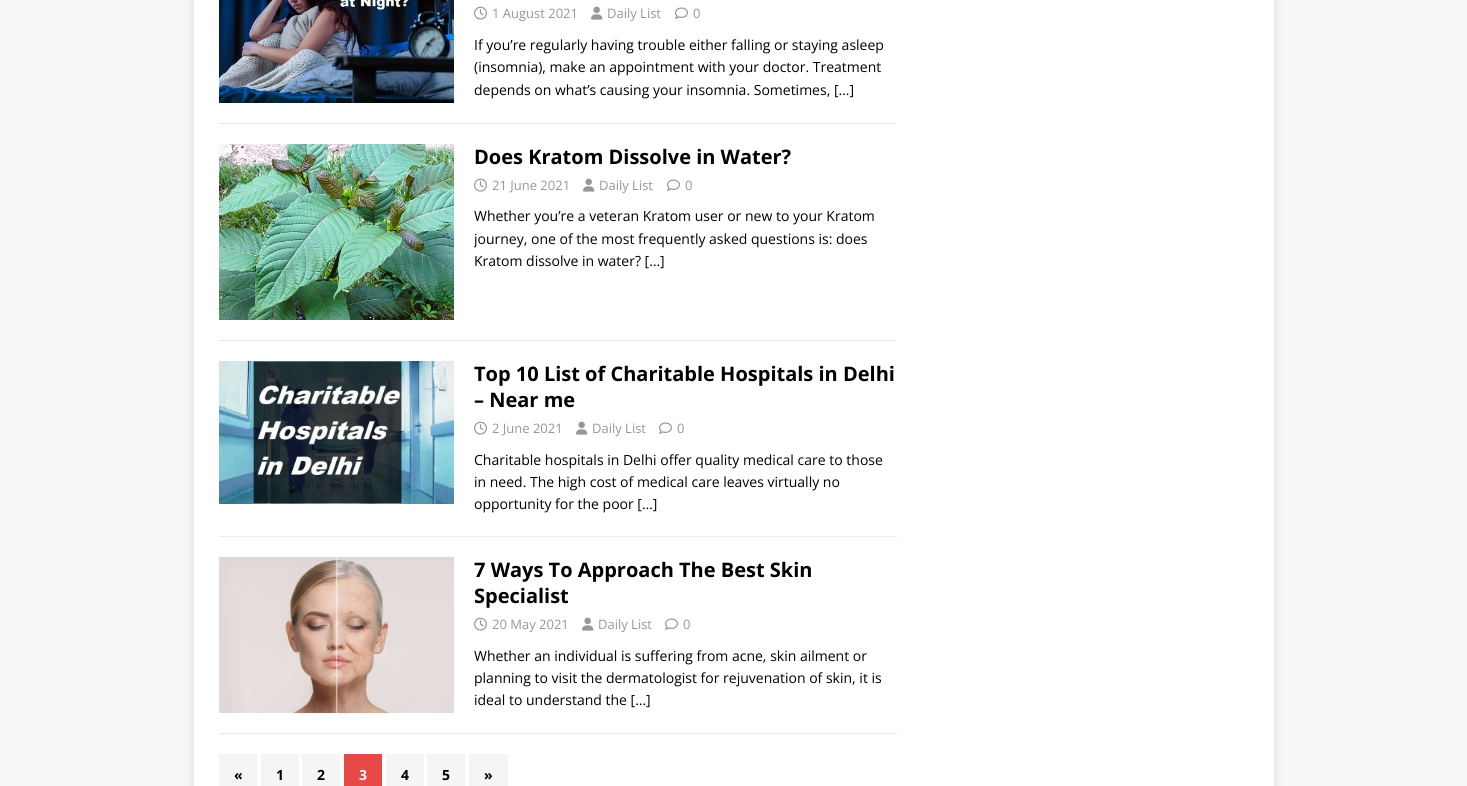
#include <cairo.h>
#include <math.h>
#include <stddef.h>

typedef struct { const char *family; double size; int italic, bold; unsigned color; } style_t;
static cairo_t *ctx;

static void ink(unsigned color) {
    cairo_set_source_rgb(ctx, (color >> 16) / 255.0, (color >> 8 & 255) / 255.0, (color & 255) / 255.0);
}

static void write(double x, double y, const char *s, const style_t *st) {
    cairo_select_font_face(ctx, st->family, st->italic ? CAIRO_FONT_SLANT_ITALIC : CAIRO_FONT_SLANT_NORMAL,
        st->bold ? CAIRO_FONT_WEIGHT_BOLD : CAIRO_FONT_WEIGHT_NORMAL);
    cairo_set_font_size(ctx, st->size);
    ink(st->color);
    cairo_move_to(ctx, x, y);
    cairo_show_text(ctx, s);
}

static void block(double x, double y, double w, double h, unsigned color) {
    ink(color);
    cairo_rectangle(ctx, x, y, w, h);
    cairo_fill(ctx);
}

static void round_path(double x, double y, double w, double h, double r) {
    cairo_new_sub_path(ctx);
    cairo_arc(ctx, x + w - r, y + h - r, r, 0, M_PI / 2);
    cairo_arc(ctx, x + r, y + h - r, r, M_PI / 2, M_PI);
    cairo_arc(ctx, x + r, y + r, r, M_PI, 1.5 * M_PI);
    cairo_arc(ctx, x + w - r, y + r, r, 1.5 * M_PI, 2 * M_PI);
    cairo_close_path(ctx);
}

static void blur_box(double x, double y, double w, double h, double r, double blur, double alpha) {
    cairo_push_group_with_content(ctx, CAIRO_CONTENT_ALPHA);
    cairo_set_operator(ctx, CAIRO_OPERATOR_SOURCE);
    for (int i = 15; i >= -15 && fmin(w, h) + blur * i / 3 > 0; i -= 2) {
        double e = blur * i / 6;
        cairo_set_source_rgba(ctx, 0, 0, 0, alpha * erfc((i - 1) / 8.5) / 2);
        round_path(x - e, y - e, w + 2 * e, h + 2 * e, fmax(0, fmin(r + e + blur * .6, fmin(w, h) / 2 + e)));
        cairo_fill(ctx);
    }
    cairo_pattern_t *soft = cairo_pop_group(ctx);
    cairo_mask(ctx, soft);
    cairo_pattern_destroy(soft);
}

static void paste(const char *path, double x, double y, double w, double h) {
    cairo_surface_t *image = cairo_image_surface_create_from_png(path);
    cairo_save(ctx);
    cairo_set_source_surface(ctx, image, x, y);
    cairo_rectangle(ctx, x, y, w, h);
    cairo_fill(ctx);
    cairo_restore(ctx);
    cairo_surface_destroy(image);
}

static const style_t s1 = {"Open Sans", 13, 0, 0, 0x979797};
static const style_t s2 = {"Open Sans", 14, 0, 0, 0x000000};
static const style_t s3 = {"Open Sans", 20, 0, 1, 0x000000};
static const style_t s4 = {"Open Sans", 14, 0, 1, 0x000000};
static const style_t s5 = {"Open Sans", 14, 0, 1, 0xffffff};

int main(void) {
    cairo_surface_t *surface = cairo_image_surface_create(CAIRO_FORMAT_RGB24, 1467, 786);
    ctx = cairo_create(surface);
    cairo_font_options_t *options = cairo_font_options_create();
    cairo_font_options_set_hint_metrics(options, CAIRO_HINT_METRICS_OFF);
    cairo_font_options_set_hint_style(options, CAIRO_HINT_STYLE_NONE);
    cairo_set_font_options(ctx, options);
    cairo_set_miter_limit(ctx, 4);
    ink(0xf7f7f7);
    cairo_paint(ctx);
    ink(0x323232);
    blur_box(194, -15, 1080, 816, 0, 5, 0.17);
    block(194, 0, 1080, 786, 0xffffff);
    block(219, 123, 678, 1, 0xebebeb);
    paste("pic1.png", 219, 0, 235, 103);
    paste("pic2.png", 474, 6, 13, 14);
    write(492, 18, "1 August 2021", &s1);
    paste("pic3.png", 591, 6, 12, 14);
    write(607, 18, "Daily List", &s1);
    paste("pic4.png", 675, 7, 13, 12);
    write(693, 18, "0", &s1);
    write(474, 50, "If you’re regularly having trouble either falling or staying asleep", &s2);
    write(474, 72, "(insomnia), make an appointment with your doctor. Treatment", &s2);
    write(474, 95, "depends on what’s causing your insomnia. Sometimes, […]", &s2);
    block(219, 340, 678, 1, 0xebebeb);
    paste("pic5.png", 219, 144, 235, 176);
    write(474, 164, "Does Kratom Dissolve in Water?", &s3);
    paste("pic2.png", 474, 178, 13, 14);
    write(492, 190, "21 June 2021", &s1);
    paste("pic3.png", 583, 178, 12, 14);
    write(599, 190, "Daily List", &s1);
    paste("pic4.png", 667, 179, 13, 12);
    write(685, 190, "0", &s1);
    write(474, 221, "Whether you’re a veteran Kratom user or new to your Kratom", &s2);
    cairo_save(ctx);
    cairo_rectangle(ctx, 474, 205, 423, 67);
    cairo_clip(ctx);
    write(474, 244, "journey, one of the most frequently asked questions is: does", &s2);
    cairo_restore(ctx);
    write(474, 266, "Kratom dissolve in water? […]", &s2);
    block(219, 536, 678, 1, 0xebebeb);
    paste("pic6.png", 219, 361, 235, 143);
    write(474, 381, "Top 10 List of Charitable Hospitals in Delhi", &s3);
    write(474, 407, "– Near me", &s3);
    paste("pic2.png", 474, 421, 13, 14);
    write(492, 433, "2 June 2021", &s1);
    paste("pic3.png", 576, 421, 12, 14);
    write(592, 433, "Daily List", &s1);
    paste("pic4.png", 659, 422, 13, 12);
    write(677, 433, "0", &s1);
    write(474, 465, "Charitable hospitals in Delhi offer quality medical care to those", &s2);
    write(474, 487, "in need. The high cost of medical care leaves virtually no", &s2);
    write(474, 509, "opportunity for the poor […]", &s2);
    block(219, 733, 678, 1, 0xebebeb);
    paste("pic7.png", 219, 557, 235, 156);
    write(474, 577, "7 Ways To Approach The Best Skin", &s3);
    write(474, 603, "Specialist", &s3);
    paste("pic2.png", 474, 617, 13, 14);
    write(492, 629, "20 May 2021", &s1);
    paste("pic3.png", 582, 617, 12, 14);
    write(598, 629, "Daily List", &s1);
    paste("pic4.png", 665, 618, 13, 12);
    write(683, 629, "0", &s1);
    write(474, 661, "Whether an individual is suffering from acne, skin ailment or", &s2);
    write(474, 683, "planning to visit the dermatologist for rejuvenation of skin, it is", &s2);
    write(474, 705, "ideal to understand the […]", &s2);
    block(219, 754, 38, 32, 0xf5f5f5);
    write(234, 780, "«", &s4);
    block(261, 754, 38, 32, 0xf5f5f5);
    write(276, 780, "1", &s4);
    block(302, 754, 38, 32, 0xf5f5f5);
    write(317, 780, "2", &s4);
    block(344, 754, 38, 32, 0xe64946);
    write(359, 780, "3", &s5);
    block(386, 754, 38, 32, 0xf5f5f5);
    write(401, 780, "4", &s4);
    block(427, 754, 38, 32, 0xf5f5f5);
    write(442, 780, "5", &s4);
    block(469, 754, 39, 32, 0xf5f5f5);
    write(484, 780, "»", &s4);
    cairo_surface_write_to_png(surface, "screenshot.png");
    cairo_font_options_destroy(options);
    cairo_destroy(ctx);
    cairo_surface_destroy(surface);
    return 0;
}
